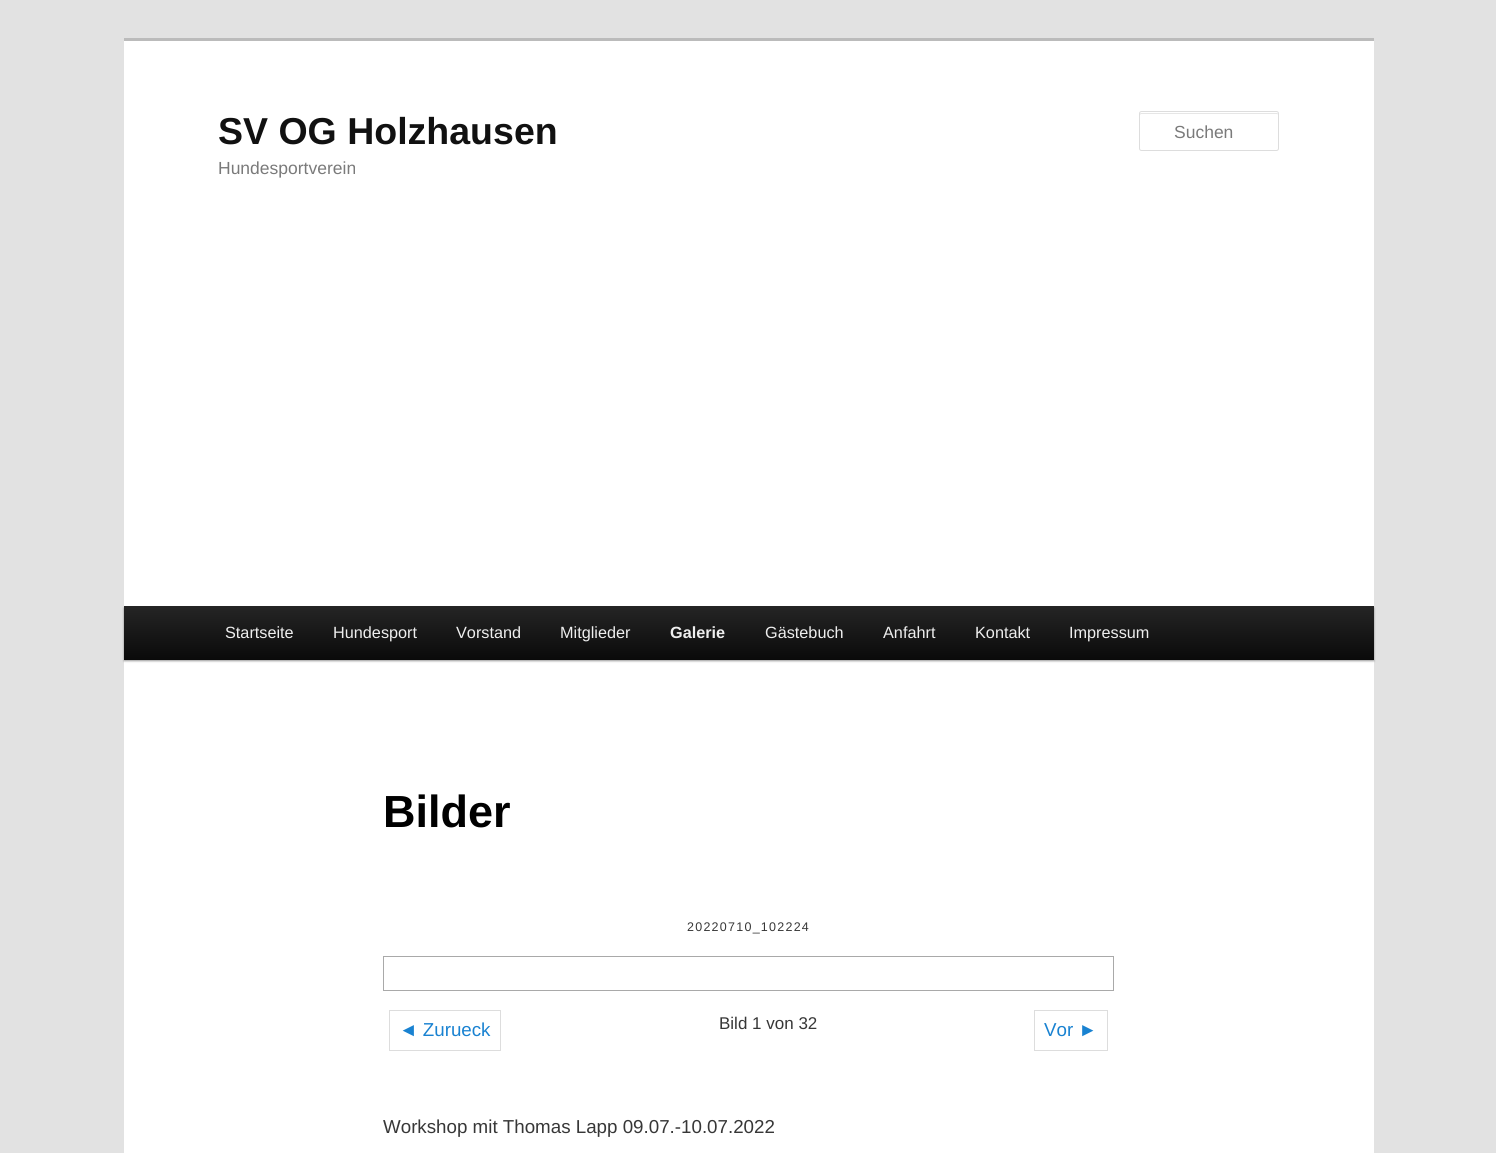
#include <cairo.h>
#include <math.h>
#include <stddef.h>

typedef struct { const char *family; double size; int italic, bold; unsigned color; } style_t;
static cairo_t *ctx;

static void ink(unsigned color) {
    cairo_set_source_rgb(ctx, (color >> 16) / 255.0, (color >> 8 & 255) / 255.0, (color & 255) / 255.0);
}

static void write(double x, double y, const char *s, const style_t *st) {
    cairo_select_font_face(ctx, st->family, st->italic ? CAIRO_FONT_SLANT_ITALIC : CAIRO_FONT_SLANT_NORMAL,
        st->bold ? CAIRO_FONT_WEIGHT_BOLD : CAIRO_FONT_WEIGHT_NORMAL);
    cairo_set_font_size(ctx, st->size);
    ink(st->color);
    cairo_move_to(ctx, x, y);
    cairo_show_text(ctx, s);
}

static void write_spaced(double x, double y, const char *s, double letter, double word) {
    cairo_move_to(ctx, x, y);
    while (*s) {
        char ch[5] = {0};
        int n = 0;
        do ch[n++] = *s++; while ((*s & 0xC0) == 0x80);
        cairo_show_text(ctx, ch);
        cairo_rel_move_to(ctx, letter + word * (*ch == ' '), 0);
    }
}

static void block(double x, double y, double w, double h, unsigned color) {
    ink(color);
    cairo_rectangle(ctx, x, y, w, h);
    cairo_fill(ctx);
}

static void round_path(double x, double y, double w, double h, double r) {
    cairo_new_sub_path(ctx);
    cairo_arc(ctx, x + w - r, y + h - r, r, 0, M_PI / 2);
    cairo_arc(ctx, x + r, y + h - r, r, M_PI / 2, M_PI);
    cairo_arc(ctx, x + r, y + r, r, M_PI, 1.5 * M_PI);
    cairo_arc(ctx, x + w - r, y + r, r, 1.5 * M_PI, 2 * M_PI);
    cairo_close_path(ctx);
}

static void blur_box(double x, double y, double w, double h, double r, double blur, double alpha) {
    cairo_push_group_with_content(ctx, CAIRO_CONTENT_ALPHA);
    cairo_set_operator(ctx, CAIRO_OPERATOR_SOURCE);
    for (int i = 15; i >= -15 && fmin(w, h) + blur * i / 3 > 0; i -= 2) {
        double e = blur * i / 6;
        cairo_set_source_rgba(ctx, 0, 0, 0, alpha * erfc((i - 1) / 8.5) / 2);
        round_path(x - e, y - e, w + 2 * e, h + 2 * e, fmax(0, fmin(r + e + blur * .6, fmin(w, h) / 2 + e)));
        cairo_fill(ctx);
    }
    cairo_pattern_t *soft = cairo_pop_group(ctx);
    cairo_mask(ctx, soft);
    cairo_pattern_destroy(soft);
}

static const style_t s1 = {"Liberation Sans", 37.5, 0, 1, 0x111111};
static const style_t s2 = {"Liberation Sans", 17.5, 0, 0, 0x7a7a7a};
static const style_t s3 = {"Liberation Sans", 16.25, 0, 0, 0xeeeeee};
static const style_t s4 = {"Liberation Sans", 16.25, 0, 1, 0xeeeeee};
static const style_t s5 = {"Liberation Sans", 45, 0, 1, 0x000000};
static const style_t s6 = {"Liberation Sans", 18.75, 0, 0, 0x1982d1};
static const style_t s7 = {"Liberation Sans", 17, 0, 0, 0x373737};
static const style_t s8 = {"Liberation Sans", 18.75, 0, 0, 0x373737};

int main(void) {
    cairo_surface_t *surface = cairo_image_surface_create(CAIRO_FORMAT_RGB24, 1496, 1153);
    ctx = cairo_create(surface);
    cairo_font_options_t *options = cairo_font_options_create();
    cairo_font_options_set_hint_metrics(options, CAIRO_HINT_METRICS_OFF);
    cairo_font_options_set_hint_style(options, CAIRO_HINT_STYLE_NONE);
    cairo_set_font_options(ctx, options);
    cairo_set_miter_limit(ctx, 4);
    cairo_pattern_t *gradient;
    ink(0xe2e2e2);
    cairo_paint(ctx);
    block(124, 41, 1250, 1112, 0xffffff);
    block(124, 38, 1250, 3, 0xbbbbbb);
    write(218, 144, "SV OG Holzhausen", &s1);
    write(218, 174, "Hundesportverein", &s2);
    ink(0xe6e6e6);
    cairo_new_path(ctx);
    cairo_move_to(ctx, 1141, 114);
    cairo_line_to(ctx, 1276, 114);
    cairo_curve_to(ctx, 1277, 114, 1278, 114, 1278, 115);
    cairo_curve_to(ctx, 1278, 114, 1278, 113, 1277, 113);
    cairo_line_to(ctx, 1141, 113);
    cairo_curve_to(ctx, 1140, 113, 1140, 114, 1140, 115);
    cairo_close_path(ctx);
    cairo_fill(ctx);
    round_path(1139.5, 111.5, 139, 39, 2);
    ink(0xdddddd);
    cairo_set_line_width(ctx, 1);
    cairo_stroke(ctx);
    write(1174, 138, "Suchen", &s2);
    ink(0x000000);
    blur_box(124, 608, 1250, 53, 0, 1, 0.4);
    gradient = cairo_pattern_create_linear(749, 606, 749, 660);
    cairo_pattern_add_color_stop_rgba(gradient, 0, 0.145, 0.145, 0.145, 1);
    cairo_pattern_add_color_stop_rgba(gradient, 1, 0.039, 0.039, 0.039, 1);
    cairo_set_source(ctx, gradient);
    cairo_pattern_destroy(gradient);
    cairo_rectangle(ctx, 124, 606, 1250, 54);
    cairo_fill(ctx);
    write(225, 638, "Startseite", &s3);
    write(333, 638, "Hundesport", &s3);
    write(456, 638, "Vorstand", &s3);
    write(560, 638, "Mitglieder", &s3);
    write(670, 638, "Galerie", &s4);
    write(765, 638, "Gästebuch", &s3);
    write(883, 638, "Anfahrt", &s3);
    write(975, 638, "Kontakt", &s3);
    write(1069, 638, "Impressum", &s3);
    write(383, 827, "Bilder", &s5);
    cairo_select_font_face(ctx, "Liberation Sans", CAIRO_FONT_SLANT_NORMAL, CAIRO_FONT_WEIGHT_NORMAL);
    cairo_set_font_size(ctx, 12.5);
    ink(0x373737);
    write_spaced(687, 931, "20220710_102224", 1.25, 0);
    cairo_rectangle(ctx, 383.5, 956.5, 730, 34);
    ink(0xa9a9a9);
    cairo_stroke(ctx);
    cairo_rectangle(ctx, 389.5, 1010.5, 111, 40);
    ink(0xdddddd);
    cairo_stroke(ctx);
    write(399, 1036, "◄ Zurueck", &s6);
    write(719, 1029, "Bild 1 von 32", &s7);
    cairo_rectangle(ctx, 1034.5, 1010.5, 73, 40);
    ink(0xdddddd);
    cairo_stroke(ctx);
    write(1044, 1036, "Vor ►", &s6);
    write(383, 1133, "Workshop mit Thomas Lapp 09.07.-10.07.2022", &s8);
    cairo_surface_write_to_png(surface, "screenshot.png");
    cairo_font_options_destroy(options);
    cairo_destroy(ctx);
    cairo_surface_destroy(surface);
    return 0;
}
